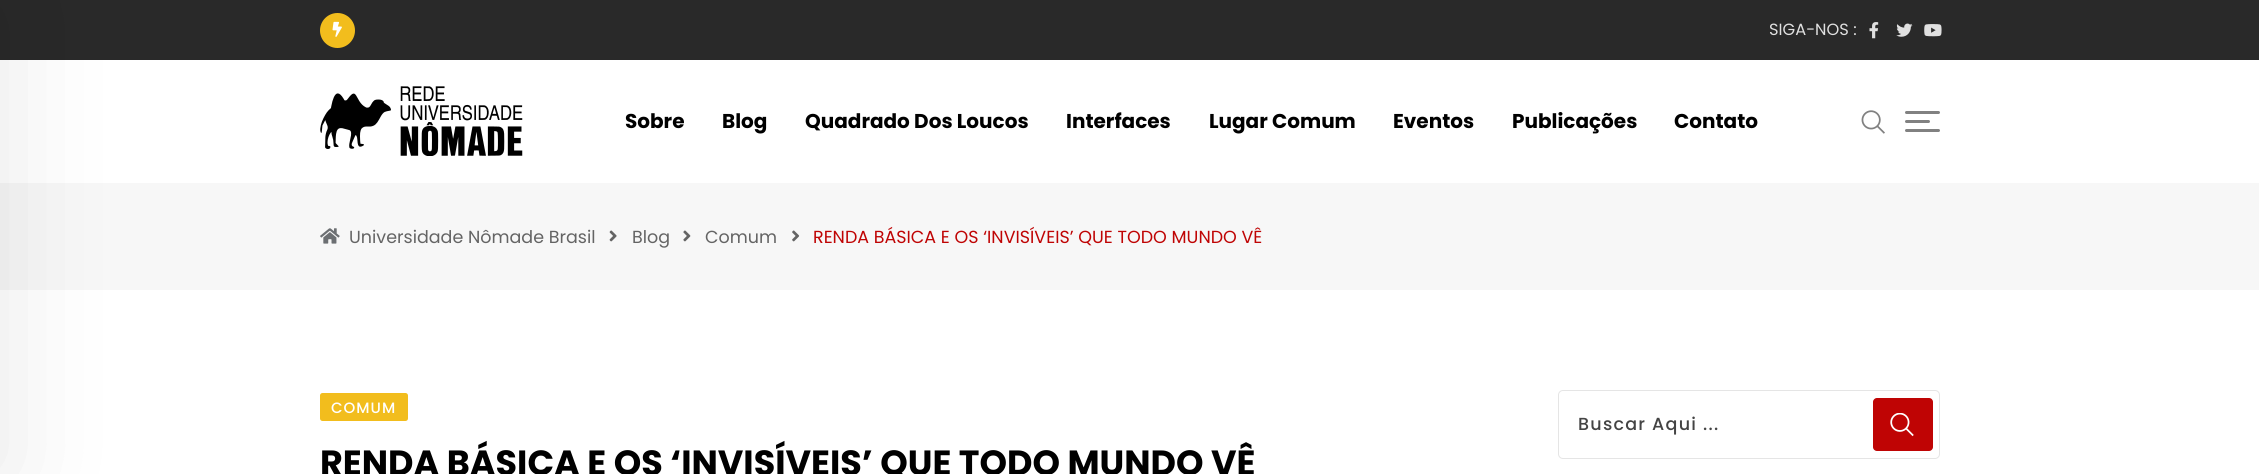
#include <cairo.h>
#include <math.h>
#include <stddef.h>

typedef struct { const char *family; double size; int italic, bold; unsigned color; } style_t;
static cairo_t *ctx;

static void ink(unsigned color) {
    cairo_set_source_rgb(ctx, (color >> 16) / 255.0, (color >> 8 & 255) / 255.0, (color & 255) / 255.0);
}

static void write(double x, double y, const char *s, const style_t *st) {
    cairo_select_font_face(ctx, st->family, st->italic ? CAIRO_FONT_SLANT_ITALIC : CAIRO_FONT_SLANT_NORMAL,
        st->bold ? CAIRO_FONT_WEIGHT_BOLD : CAIRO_FONT_WEIGHT_NORMAL);
    cairo_set_font_size(ctx, st->size);
    ink(st->color);
    cairo_move_to(ctx, x, y);
    cairo_show_text(ctx, s);
}

static void write_spaced(double x, double y, const char *s, double letter, double word) {
    cairo_move_to(ctx, x, y);
    while (*s) {
        char ch[5] = {0};
        int n = 0;
        do ch[n++] = *s++; while ((*s & 0xC0) == 0x80);
        cairo_show_text(ctx, ch);
        cairo_rel_move_to(ctx, letter + word * (*ch == ' '), 0);
    }
}

static void block(double x, double y, double w, double h, unsigned color) {
    ink(color);
    cairo_rectangle(ctx, x, y, w, h);
    cairo_fill(ctx);
}

static void round_path(double x, double y, double w, double h, double r) {
    cairo_new_sub_path(ctx);
    cairo_arc(ctx, x + w - r, y + h - r, r, 0, M_PI / 2);
    cairo_arc(ctx, x + r, y + h - r, r, M_PI / 2, M_PI);
    cairo_arc(ctx, x + r, y + r, r, M_PI, 1.5 * M_PI);
    cairo_arc(ctx, x + w - r, y + r, r, 1.5 * M_PI, 2 * M_PI);
    cairo_close_path(ctx);
}

static void blur_box(double x, double y, double w, double h, double r, double blur, double alpha) {
    cairo_push_group_with_content(ctx, CAIRO_CONTENT_ALPHA);
    cairo_set_operator(ctx, CAIRO_OPERATOR_SOURCE);
    for (int i = 15; i >= -15 && fmin(w, h) + blur * i / 3 > 0; i -= 2) {
        double e = blur * i / 6;
        cairo_set_source_rgba(ctx, 0, 0, 0, alpha * erfc((i - 1) / 8.5) / 2);
        round_path(x - e, y - e, w + 2 * e, h + 2 * e, fmax(0, fmin(r + e + blur * .6, fmin(w, h) / 2 + e)));
        cairo_fill(ctx);
    }
    cairo_pattern_t *soft = cairo_pop_group(ctx);
    cairo_mask(ctx, soft);
    cairo_pattern_destroy(soft);
}

static void paste(const char *path, double x, double y, double w, double h) {
    cairo_surface_t *image = cairo_image_surface_create_from_png(path);
    cairo_save(ctx);
    cairo_set_source_surface(ctx, image, x, y);
    cairo_rectangle(ctx, x, y, w, h);
    cairo_fill(ctx);
    cairo_restore(ctx);
    cairo_surface_destroy(image);
}

static const style_t s1 = {"Poppins", 16.25, 0, 0, 0xe0e0e0};
static const style_t s2 = {"Poppins", 20, 0, 1, 0x000000};
static const style_t s3 = {"Poppins", 17.5, 0, 0, 0x646464};
static const style_t s4 = {"Poppins", 17.5, 0, 0, 0xbf0404};
static const style_t s5 = {"Poppins", 35, 0, 1, 0x000000};

int main(void) {
    cairo_surface_t *surface = cairo_image_surface_create(CAIRO_FORMAT_RGB24, 2259, 474);
    ctx = cairo_create(surface);
    cairo_font_options_t *options = cairo_font_options_create();
    cairo_font_options_set_hint_metrics(options, CAIRO_HINT_METRICS_OFF);
    cairo_font_options_set_hint_style(options, CAIRO_HINT_STYLE_NONE);
    cairo_set_font_options(ctx, options);
    cairo_set_miter_limit(ctx, 4);
    ink(0xffffff);
    cairo_paint(ctx);
    block(0, 0, 2259, 60, 0x292929);
    ink(0xf2bd1d);
    cairo_arc(ctx, 337.5, 30.5, 17.5, 0, 2 * M_PI);
    cairo_fill(ctx);
    paste("pic1.png", 332, 21, 10, 16);
    write(1769, 35, "SIGA-NOS :", &s1);
    paste("pic2.png", 1869, 22, 10, 17);
    paste("pic3.png", 1896, 23, 17, 14);
    paste("pic4.png", 1924, 24, 18, 13);
    block(0, 183, 2259, 107, 0xf7f7f7);
    ink(0x000000);
    blur_box(-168, 0, 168, 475, 0, 56, 0.1);
    ink(0x818181);
    round_path(1905, 111, 35, 3, 1.5);
    cairo_fill(ctx);
    round_path(1905, 120, 25, 3, 1.5);
    cairo_fill(ctx);
    round_path(1905, 129, 35, 3, 1.5);
    cairo_fill(ctx);
    paste("pic5.png", 1861, 110, 24, 24);
    paste("pic6.png", 320, 86, 203, 70);
    write(625, 128, "Sobre", &s2);
    write(722, 128, "Blog", &s2);
    write(805, 128, "Quadrado Dos Loucos", &s2);
    write(1066, 128, "Interfaces", &s2);
    write(1209, 128, "Lugar Comum", &s2);
    write(1393, 128, "Eventos", &s2);
    write(1512, 128, "Publicações", &s2);
    write(1674, 128, "Contato", &s2);
    paste("pic7.png", 320, 228, 20, 16);
    write(349, 243, "Universidade Nômade Brasil", &s3);
    paste("pic8.png", 609, 230, 8, 12);
    write(632, 243, "Blog", &s3);
    paste("pic9.png", 683, 230, 8, 12);
    write(705, 243, "Comum", &s3);
    paste("pic10.png", 792, 230, 8, 12);
    write(813, 243, "RENDA BÁSICA E OS ‘INVISÍVEIS’ QUE TODO MUNDO VÊ", &s4);
    ink(0xf2bd1d);
    round_path(320, 393, 88, 28, 2.5);
    cairo_fill(ctx);
    cairo_select_font_face(ctx, "Poppins Medium", CAIRO_FONT_SLANT_NORMAL, CAIRO_FONT_WEIGHT_NORMAL);
    cairo_set_font_size(ctx, 15);
    ink(0xffffff);
    write_spaced(331, 413, "COMUM", 1, 0);
    write(320, 475, "RENDA BÁSICA E OS ‘INVISÍVEIS’ QUE TODO MUNDO VÊ", &s5);
    round_path(1558.5, 390.5, 381, 68, 4.5);
    ink(0xe5e5e5);
    cairo_set_line_width(ctx, 1);
    cairo_stroke(ctx);
    cairo_select_font_face(ctx, "Poppins Medium", CAIRO_FONT_SLANT_NORMAL, CAIRO_FONT_WEIGHT_NORMAL);
    cairo_set_font_size(ctx, 17.5);
    ink(0x444444);
    write_spaced(1578, 430, "Buscar Aqui ...", 1.25, 0);
    ink(0xbf0404);
    round_path(1873, 398, 60, 53, 4);
    cairo_fill(ctx);
    paste("pic11.png", 1890, 413, 24, 24);
    cairo_surface_write_to_png(surface, "screenshot.png");
    cairo_font_options_destroy(options);
    cairo_destroy(ctx);
    cairo_surface_destroy(surface);
    return 0;
}
